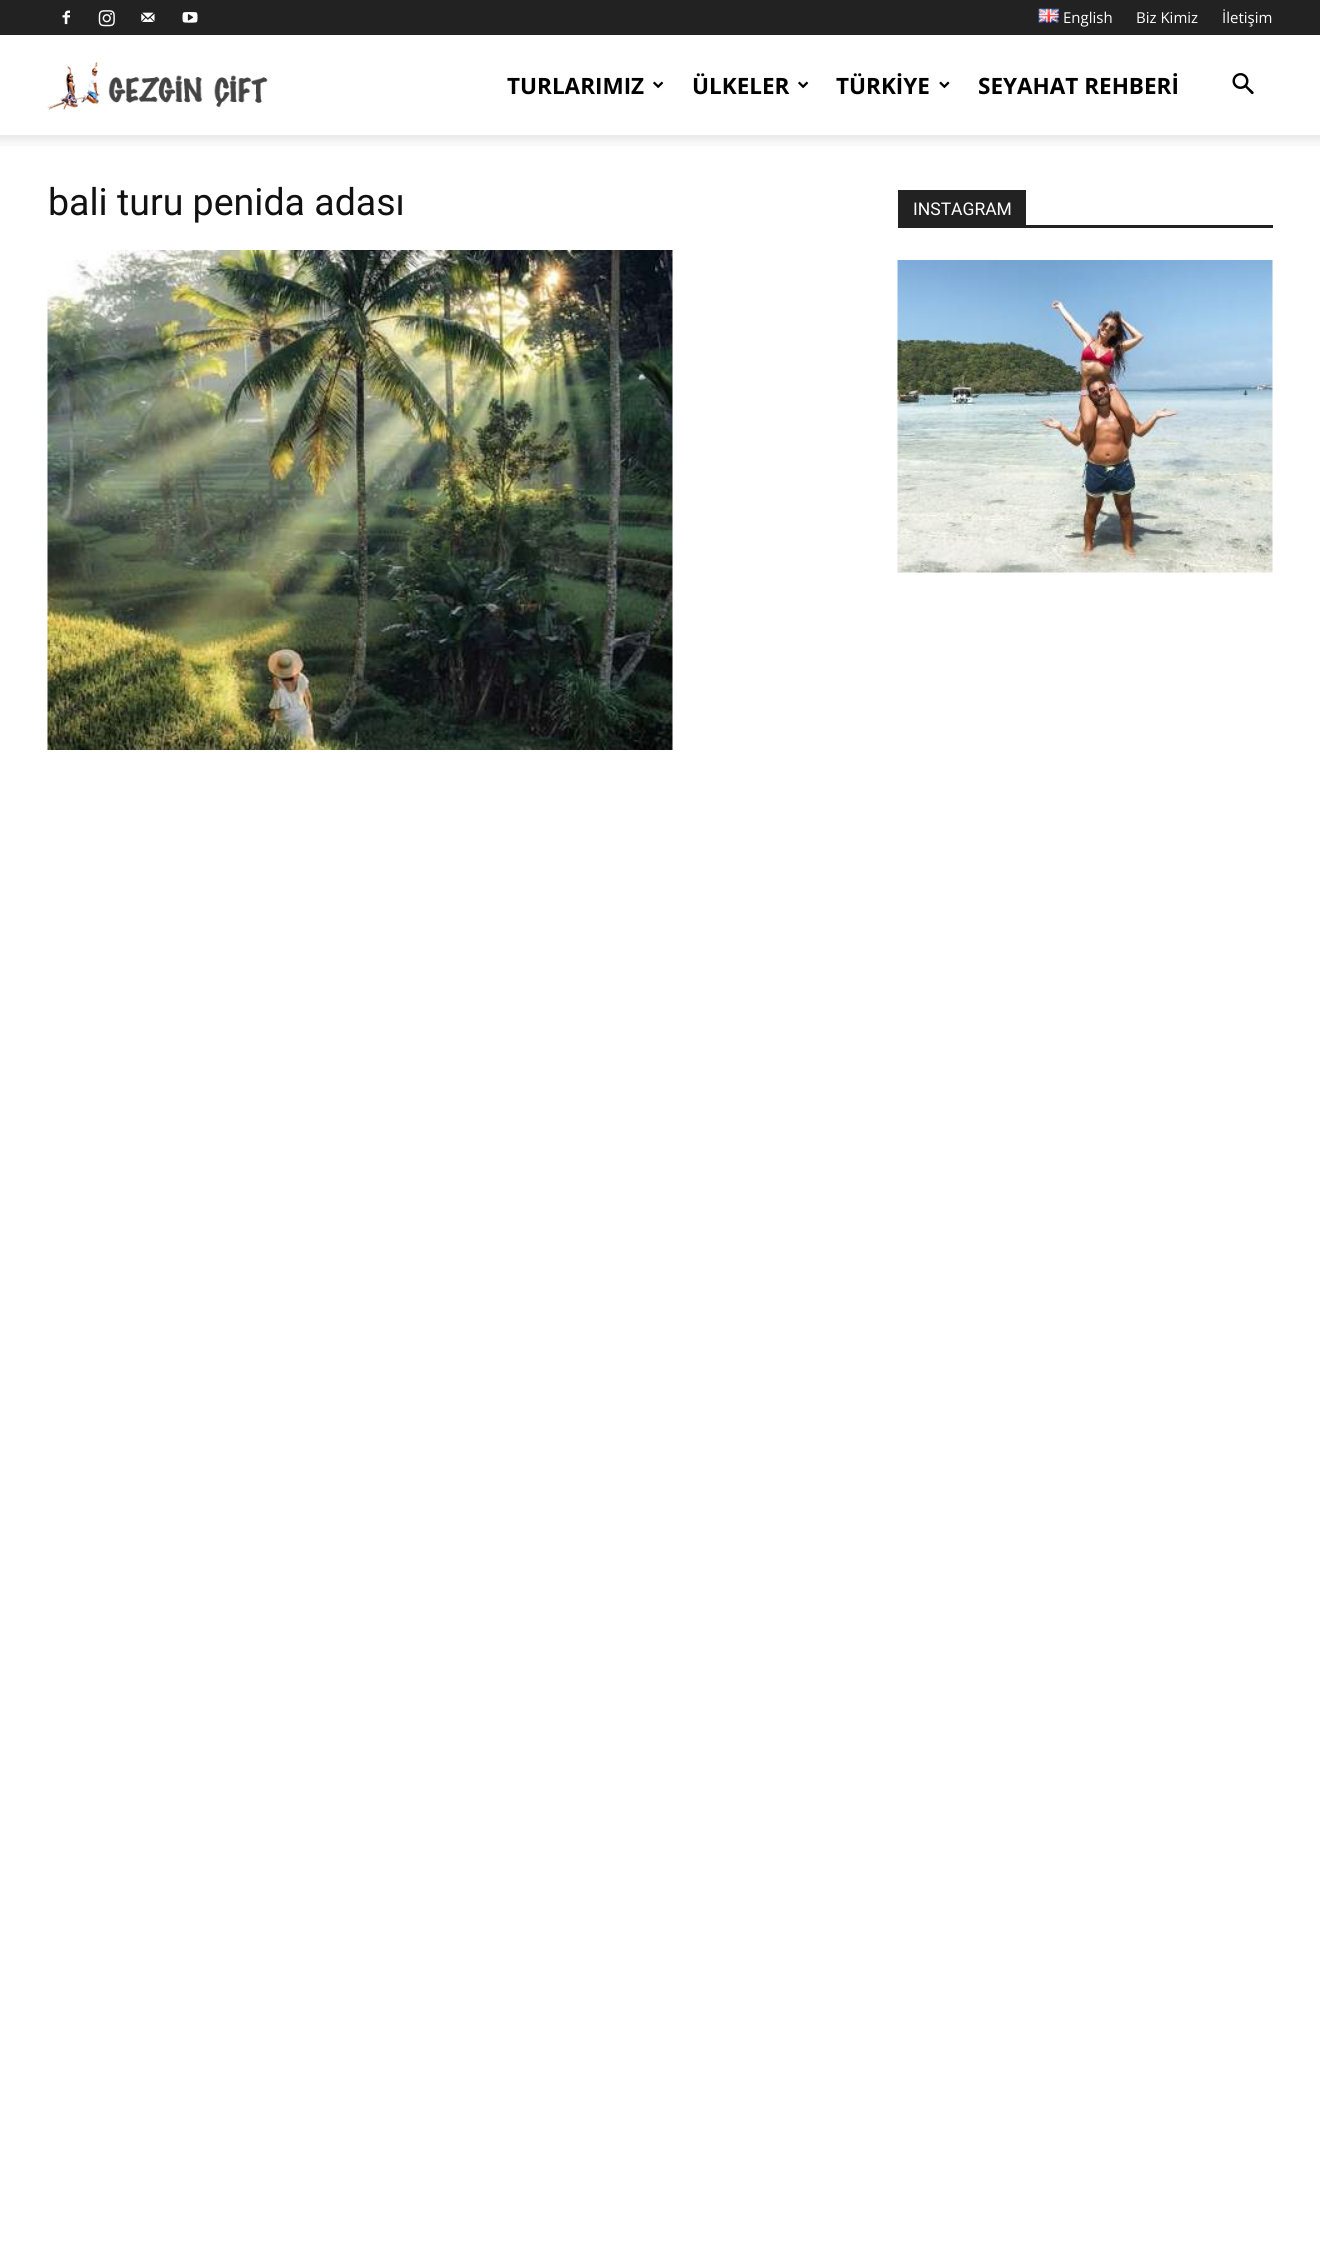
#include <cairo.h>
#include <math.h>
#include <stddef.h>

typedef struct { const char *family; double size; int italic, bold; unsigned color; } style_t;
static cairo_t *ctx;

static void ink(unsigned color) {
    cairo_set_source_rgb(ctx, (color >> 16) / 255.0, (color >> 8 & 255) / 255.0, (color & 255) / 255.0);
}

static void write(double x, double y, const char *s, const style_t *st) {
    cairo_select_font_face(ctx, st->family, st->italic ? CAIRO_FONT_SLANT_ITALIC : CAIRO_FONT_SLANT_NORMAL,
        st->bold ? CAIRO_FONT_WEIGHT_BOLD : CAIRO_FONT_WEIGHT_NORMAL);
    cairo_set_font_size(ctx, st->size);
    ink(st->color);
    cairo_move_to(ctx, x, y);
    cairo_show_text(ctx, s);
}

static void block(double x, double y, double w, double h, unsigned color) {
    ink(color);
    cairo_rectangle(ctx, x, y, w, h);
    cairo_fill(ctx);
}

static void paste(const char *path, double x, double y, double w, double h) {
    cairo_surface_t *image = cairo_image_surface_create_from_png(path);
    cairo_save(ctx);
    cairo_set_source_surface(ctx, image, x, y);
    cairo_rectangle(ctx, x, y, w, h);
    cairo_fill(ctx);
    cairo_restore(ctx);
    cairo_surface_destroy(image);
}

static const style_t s1 = {"Open Sans", 15, 0, 0, 0xffffff};
static const style_t s2 = {"Open Sans", 22.5, 0, 1, 0x000000};
static const style_t s3 = {"Roboto", 37.5, 0, 0, 0x111111};
static const style_t s4 = {"Roboto", 17.5, 0, 0, 0xffffff};

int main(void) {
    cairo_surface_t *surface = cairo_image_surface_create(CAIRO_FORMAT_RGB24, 1320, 2249);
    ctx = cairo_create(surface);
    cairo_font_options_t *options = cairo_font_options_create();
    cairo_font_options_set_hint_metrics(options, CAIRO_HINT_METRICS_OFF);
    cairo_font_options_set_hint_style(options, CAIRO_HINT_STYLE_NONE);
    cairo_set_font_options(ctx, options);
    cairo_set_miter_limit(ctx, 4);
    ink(0xffffff);
    cairo_paint(ctx);
    block(0, 0, 1320, 35, 0x222222);
    paste("pic1.png", 62, 10, 8, 15);
    paste("pic2.png", 98, 10, 17, 17);
    paste("pic3.png", 141, 12, 14, 10);
    paste("pic4.png", 182, 12, 16, 11);
    paste("pic5.png", 1038, 8, 21, 15);
    write(1063, 23, "English", &s1);
    write(1136, 23, "Biz Kimiz", &s1);
    write(1222, 23, "İletişim", &s1);
    paste("pic6.png", 47, 62, 221, 48);
    write(507, 94, "TURLARIMIZ", &s2);
    paste("pic7.png", 653, 81, 11, 8);
    write(692, 94, "ÜLKELER", &s2);
    paste("pic7.png", 798, 81, 11, 8);
    write(836, 94, "TÜRKİYE", &s2);
    paste("pic8.png", 939, 81, 11, 8);
    write(978, 94, "SEYAHAT REHBERİ", &s2);
    paste("pic9.png", 1232, 73, 22, 22);
    paste("pic10.png", 0, 135, 1320, 11);
    write(48, 215, "bali turu penida adası", &s3);
    paste("pic11.png", 47, 250, 626, 500);
    block(898, 225, 375, 3, 0x222222);
    block(898, 190, 128, 35, 0x222222);
    write(913, 215, "INSTAGRAM", &s4);
    paste("pic12.png", 897, 260, 376, 313);
    cairo_surface_write_to_png(surface, "screenshot.png");
    cairo_font_options_destroy(options);
    cairo_destroy(ctx);
    cairo_surface_destroy(surface);
    return 0;
}
